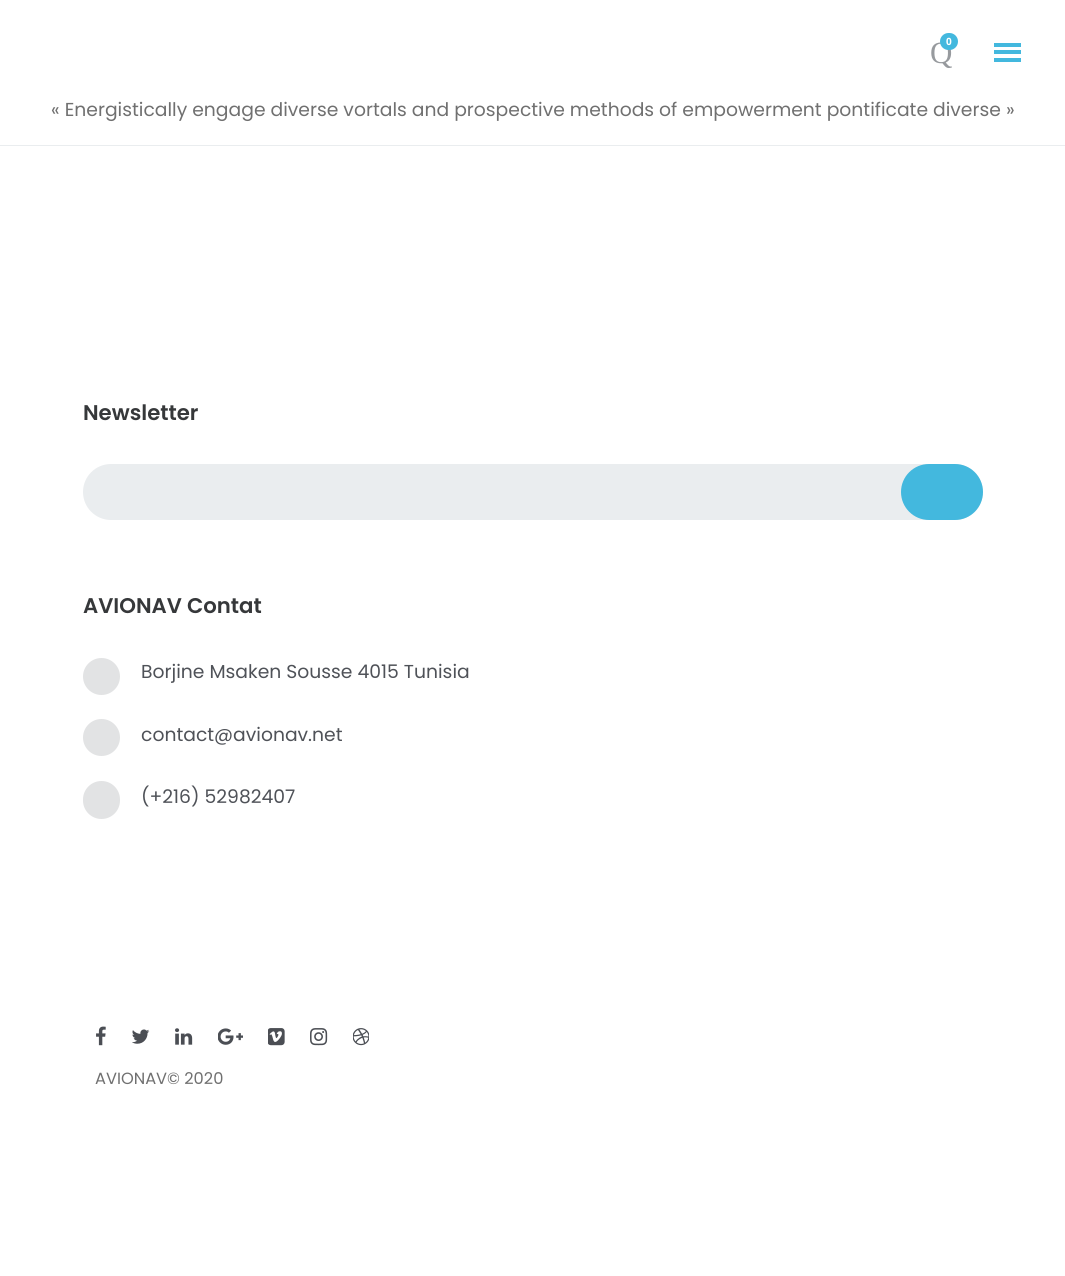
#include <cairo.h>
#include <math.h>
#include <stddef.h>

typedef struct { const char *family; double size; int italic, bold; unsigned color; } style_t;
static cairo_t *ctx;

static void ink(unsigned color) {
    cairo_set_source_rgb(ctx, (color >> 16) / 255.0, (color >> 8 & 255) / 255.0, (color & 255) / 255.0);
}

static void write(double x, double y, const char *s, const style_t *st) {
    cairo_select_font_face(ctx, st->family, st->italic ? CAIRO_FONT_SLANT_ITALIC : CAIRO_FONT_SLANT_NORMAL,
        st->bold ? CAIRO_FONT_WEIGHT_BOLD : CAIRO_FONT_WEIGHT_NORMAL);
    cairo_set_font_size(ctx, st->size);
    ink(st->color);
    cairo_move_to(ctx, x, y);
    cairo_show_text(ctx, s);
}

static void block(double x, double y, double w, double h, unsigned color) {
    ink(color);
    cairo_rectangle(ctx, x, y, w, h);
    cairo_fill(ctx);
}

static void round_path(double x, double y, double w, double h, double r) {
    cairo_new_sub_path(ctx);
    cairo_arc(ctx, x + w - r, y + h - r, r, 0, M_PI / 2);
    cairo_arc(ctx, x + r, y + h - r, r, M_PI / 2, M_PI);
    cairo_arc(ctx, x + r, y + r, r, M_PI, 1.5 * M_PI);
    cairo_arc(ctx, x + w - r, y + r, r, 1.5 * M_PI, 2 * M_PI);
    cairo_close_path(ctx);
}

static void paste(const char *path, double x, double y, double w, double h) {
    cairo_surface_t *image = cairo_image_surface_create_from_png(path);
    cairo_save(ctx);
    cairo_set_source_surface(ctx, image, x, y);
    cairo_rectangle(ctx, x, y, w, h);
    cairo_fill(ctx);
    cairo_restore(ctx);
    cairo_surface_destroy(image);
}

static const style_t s1 = {"Liberation Serif", 31, 0, 0, 0x979a9e};
static const style_t s2 = {"Open Sans", 10, 0, 1, 0xffffff};
static const style_t s3 = {"Poppins", 18.75, 0, 0, 0x707070};
static const style_t s4 = {"Poppins SemiBold", 21.25, 0, 0, 0x36383a};
static const style_t s5 = {"Poppins", 18.75, 0, 0, 0x4f5258};
static const style_t s6 = {"Poppins", 16.25, 0, 0, 0x707070};

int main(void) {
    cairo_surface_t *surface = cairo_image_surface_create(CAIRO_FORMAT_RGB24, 1065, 1276);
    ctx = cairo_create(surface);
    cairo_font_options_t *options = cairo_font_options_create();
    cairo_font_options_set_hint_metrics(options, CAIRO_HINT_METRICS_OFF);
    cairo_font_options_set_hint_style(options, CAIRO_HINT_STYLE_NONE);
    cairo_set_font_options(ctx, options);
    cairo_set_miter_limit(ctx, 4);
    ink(0xffffff);
    cairo_paint(ctx);
    write(930, 63, "Q", &s1);
    ink(0x43b8de);
    round_path(940, 33, 18, 17, 8.5);
    cairo_fill(ctx);
    write(946, 45, "0", &s2);
    block(994, 58, 27, 4, 0x43b8de);
    block(994, 50, 27, 4, 0x43b8de);
    block(994, 43, 27, 4, 0x43b8de);
    write(51, 116, "« Energistically engage diverse vortals and prospective methods of empowerment pontificate diverse »", &s3);
    block(0, 145, 1065, 1, 0xeaedef);
    write(83, 420, "Newsletter", &s4);
    ink(0xeaedef);
    round_path(83, 464, 900, 56, 28);
    cairo_fill(ctx);
    ink(0x43b8de);
    round_path(901, 464, 82, 56, 28);
    cairo_fill(ctx);
    write(83, 613, "AVIONAV Contat", &s4);
    ink(0xe2e3e4);
    cairo_new_path(ctx);
    cairo_arc(ctx, 101.5, 676.5, 18.5, 0, 2 * M_PI);
    cairo_fill(ctx);
    write(141, 678, "Borjine Msaken Sousse 4015 Tunisia", &s5);
    ink(0xe2e3e4);
    cairo_new_path(ctx);
    cairo_arc(ctx, 101.5, 737.5, 18.5, 0, 2 * M_PI);
    cairo_fill(ctx);
    write(141, 741, "contact@avionav.net", &s5);
    ink(0xe2e3e4);
    round_path(83, 781, 37, 38, 18.5);
    cairo_fill(ctx);
    write(141, 803, "(+216) 52982407", &s5);
    paste("pic1.png", 96, 1026, 10, 20);
    paste("pic2.png", 132, 1029, 18, 15);
    paste("pic3.png", 175, 1028, 18, 17);
    paste("pic4.png", 218, 1028, 25, 17);
    paste("pic5.png", 268, 1028, 17, 18);
    paste("pic6.png", 310, 1028, 18, 18);
    paste("pic7.png", 353, 1028, 16, 18);
    write(95, 1084, "AVIONAV© 2020", &s6);
    cairo_surface_write_to_png(surface, "screenshot.png");
    cairo_font_options_destroy(options);
    cairo_destroy(ctx);
    cairo_surface_destroy(surface);
    return 0;
}
